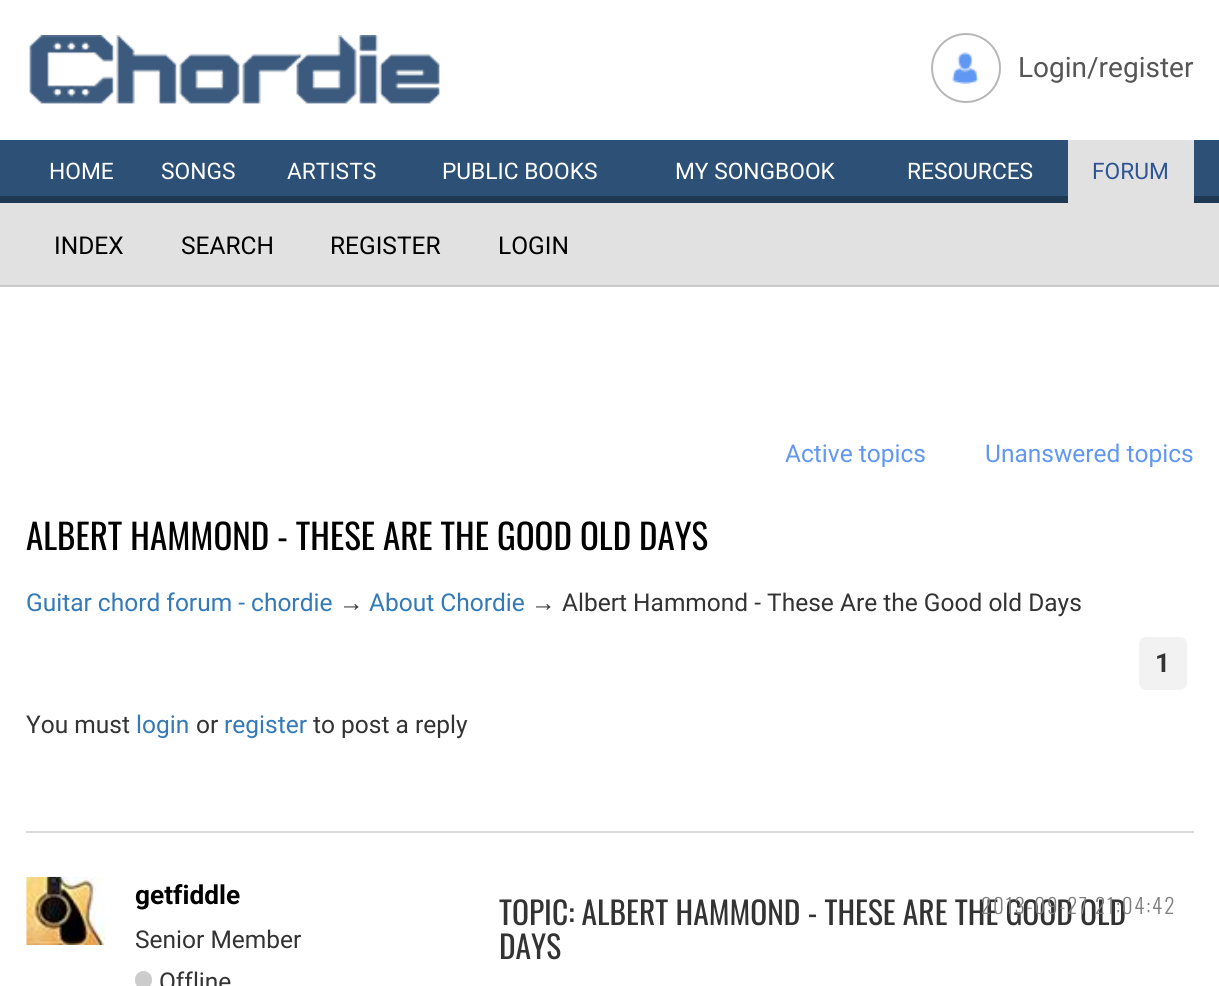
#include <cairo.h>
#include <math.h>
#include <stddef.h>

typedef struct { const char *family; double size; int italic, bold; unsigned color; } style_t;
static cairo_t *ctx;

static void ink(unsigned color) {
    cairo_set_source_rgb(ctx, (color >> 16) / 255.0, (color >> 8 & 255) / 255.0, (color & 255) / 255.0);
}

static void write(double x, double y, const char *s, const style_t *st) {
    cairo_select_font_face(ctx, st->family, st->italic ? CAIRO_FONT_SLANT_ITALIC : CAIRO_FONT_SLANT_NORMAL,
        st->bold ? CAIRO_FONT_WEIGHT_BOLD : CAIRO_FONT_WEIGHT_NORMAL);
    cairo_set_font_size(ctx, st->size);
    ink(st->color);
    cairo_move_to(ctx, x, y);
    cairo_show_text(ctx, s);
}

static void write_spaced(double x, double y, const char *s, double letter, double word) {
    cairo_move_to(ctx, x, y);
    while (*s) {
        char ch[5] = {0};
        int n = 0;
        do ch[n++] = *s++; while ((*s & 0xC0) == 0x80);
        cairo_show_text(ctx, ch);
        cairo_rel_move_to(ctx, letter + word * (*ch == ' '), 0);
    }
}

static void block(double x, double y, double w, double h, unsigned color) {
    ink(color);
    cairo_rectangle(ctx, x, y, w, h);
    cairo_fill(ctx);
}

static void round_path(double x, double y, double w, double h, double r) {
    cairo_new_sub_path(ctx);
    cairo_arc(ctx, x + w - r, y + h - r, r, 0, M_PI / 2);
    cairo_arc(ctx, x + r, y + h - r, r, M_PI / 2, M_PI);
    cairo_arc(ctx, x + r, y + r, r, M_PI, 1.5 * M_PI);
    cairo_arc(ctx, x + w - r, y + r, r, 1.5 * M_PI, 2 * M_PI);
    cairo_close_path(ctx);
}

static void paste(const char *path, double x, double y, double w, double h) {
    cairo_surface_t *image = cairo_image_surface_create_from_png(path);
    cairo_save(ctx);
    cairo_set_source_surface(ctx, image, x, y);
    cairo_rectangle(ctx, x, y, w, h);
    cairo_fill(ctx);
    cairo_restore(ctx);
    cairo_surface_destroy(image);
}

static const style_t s1 = {"Roboto", 28, 0, 0, 0x565656};
static const style_t s2 = {"Roboto", 22.75, 0, 0, 0xffffff};
static const style_t s3 = {"Roboto", 22.75, 0, 0, 0x2f5595};
static const style_t s4 = {"Roboto", 24.5, 0, 0, 0x000000};
static const style_t s5 = {"Roboto", 24.5, 0, 0, 0x6097f3};
static const style_t s6 = {"Oswald", 35, 0, 0, 0x000000};
static const style_t s7 = {"Roboto", 24.5, 0, 0, 0x337ab7};
static const style_t s8 = {"Liberation Sans", 24.5, 0, 0, 0x333333};
static const style_t s9 = {"Roboto", 24.5, 0, 0, 0x333333};
static const style_t s10 = {"Roboto", 26.25, 0, 1, 0x333333};
static const style_t s11 = {"Roboto", 26.25, 0, 1, 0x000000};
static const style_t s12 = {"Oswald", 31.5, 0, 0, 0x333333};

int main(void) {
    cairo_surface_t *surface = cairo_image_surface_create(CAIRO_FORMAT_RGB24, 1219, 986);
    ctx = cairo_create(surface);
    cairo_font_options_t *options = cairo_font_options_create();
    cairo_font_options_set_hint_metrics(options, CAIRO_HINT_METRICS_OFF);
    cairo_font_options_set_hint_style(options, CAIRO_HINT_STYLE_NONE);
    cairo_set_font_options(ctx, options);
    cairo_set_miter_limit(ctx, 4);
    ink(0xffffff);
    cairo_paint(ctx);
    paste("pic1.png", 29, 35, 411, 69);
    paste("pic2.png", 952, 52, 27, 32);
    cairo_arc(ctx, 966, 68, 34, 0, 2 * M_PI);
    ink(0xb7b7b7);
    cairo_stroke(ctx);
    write(1018, 77, "Login/register", &s1);
    block(0, 140, 1219, 56, 0x2d5077);
    block(0, 196, 1219, 7, 0x1f3853);
    write(49, 179, "HOME", &s2);
    write(161, 179, "SONGS", &s2);
    write(287, 179, "ARTISTS", &s2);
    write(442, 179, "PUBLIC BOOKS", &s2);
    write(675, 179, "MY SONGBOOK", &s2);
    write(907, 179, "RESOURCES", &s2);
    block(1068, 140, 126, 63, 0xe1e1e1);
    write(1092, 179, "FORUM", &s3);
    block(0, 203, 1219, 82, 0xe1e1e1);
    block(0, 285, 1219, 2, 0xcacaca);
    write(54, 254, "INDEX", &s4);
    write(181, 254, "SEARCH", &s4);
    write(330, 254, "REGISTER", &s4);
    write(498, 254, "LOGIN", &s4);
    write(785, 462, "Active topics", &s5);
    write(985, 462, "Unanswered topics", &s5);
    write(26, 550, "ALBERT HAMMOND - THESE ARE THE GOOD OLD DAYS", &s6);
    write(26, 611, "Guitar chord forum - chordie", &s7);
    write(339, 611, "→", &s8);
    write(369, 611, "About Chordie", &s7);
    write(531, 611, "→", &s8);
    write(562, 611, "Albert Hammond - These Are the Good old Days", &s9);
    ink(0xf2f2f2);
    round_path(1139, 637, 48, 53, 7);
    cairo_fill(ctx);
    write(1155, 672, "1", &s10);
    write(26, 733, "You must", &s9);
    write(136, 733, "login", &s7);
    write(196, 733, "or", &s9);
    write(224, 733, "register", &s7);
    write(313, 733, "to post a reply", &s9);
    paste("pic3.png", 26, 876, 79, 69);
    write(135, 904, "getfiddle", &s11);
    write(135, 948, "Senior Member", &s9);
    ink(0xcccccc);
    round_path(135, 971, 17, 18, 8.5);
    cairo_fill(ctx);
    write(159, 990, "Offline", &s9);
    write(499, 925, "TOPIC: ALBERT HAMMOND - THESE ARE THE GOOD OLD", &s12);
    write(499, 959, "DAYS", &s12);
    block(26, 831, 1168, 2, 0xd9d9d9);
    cairo_select_font_face(ctx, "Oswald Light", CAIRO_FONT_SLANT_NORMAL, CAIRO_FONT_WEIGHT_NORMAL);
    cairo_set_font_size(ctx, 21);
    ink(0x808080);
    write_spaced(981, 914, "2013-09-27 21:04:42", 1.75, 0);
    cairo_surface_write_to_png(surface, "screenshot.png");
    cairo_font_options_destroy(options);
    cairo_destroy(ctx);
    cairo_surface_destroy(surface);
    return 0;
}
